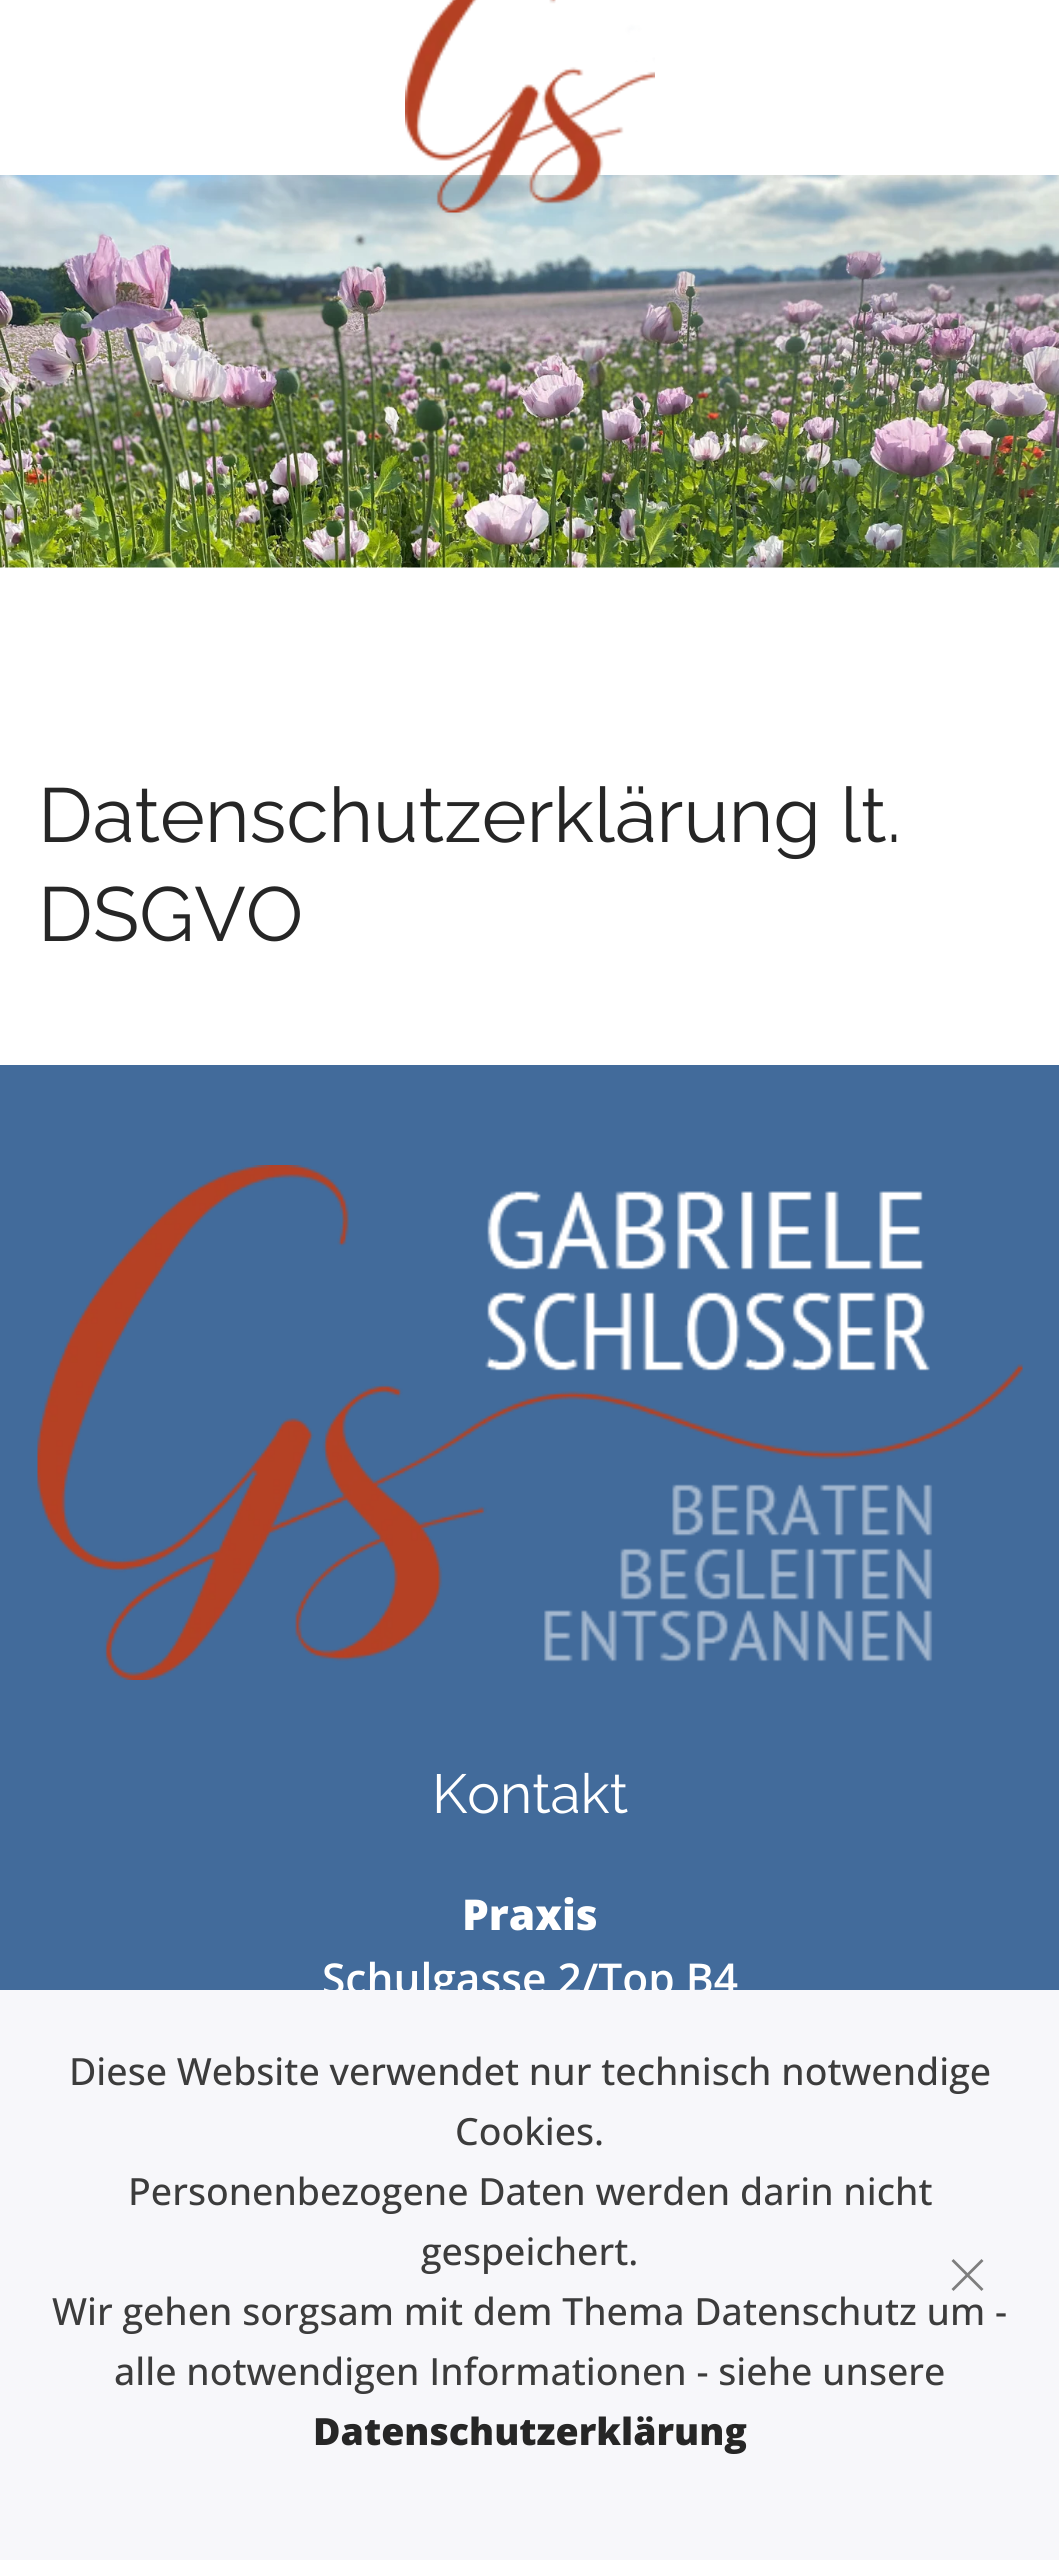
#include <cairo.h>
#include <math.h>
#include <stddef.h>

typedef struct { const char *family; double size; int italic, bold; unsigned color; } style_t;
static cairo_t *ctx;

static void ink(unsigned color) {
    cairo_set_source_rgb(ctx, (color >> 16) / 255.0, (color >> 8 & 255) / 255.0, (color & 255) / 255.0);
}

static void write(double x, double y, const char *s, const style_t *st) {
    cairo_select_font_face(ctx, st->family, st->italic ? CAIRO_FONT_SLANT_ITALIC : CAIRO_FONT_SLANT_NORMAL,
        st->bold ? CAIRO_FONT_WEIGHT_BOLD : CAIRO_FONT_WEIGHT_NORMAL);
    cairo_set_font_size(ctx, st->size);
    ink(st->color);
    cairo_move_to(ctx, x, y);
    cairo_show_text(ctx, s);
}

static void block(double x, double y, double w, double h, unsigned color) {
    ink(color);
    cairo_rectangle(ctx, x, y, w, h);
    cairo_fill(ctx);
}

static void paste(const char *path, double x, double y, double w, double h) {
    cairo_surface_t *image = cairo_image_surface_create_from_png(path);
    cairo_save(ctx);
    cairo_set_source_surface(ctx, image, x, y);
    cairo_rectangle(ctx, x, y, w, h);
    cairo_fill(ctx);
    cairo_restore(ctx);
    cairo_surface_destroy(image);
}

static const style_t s1 = {"Raleway Thin", 76.5, 0, 0, 0x262626};
static const style_t s2 = {"Raleway Thin", 55, 0, 0, 0xffffff};
static const style_t s3 = {"Open Sans ExtraBold", 42.5, 0, 0, 0xffffff};
static const style_t s4 = {"Open Sans SemiBold", 42.5, 0, 0, 0xffffff};
static const style_t s5 = {"Open Sans Medium", 37.5, 0, 0, 0x3c3c3c};
static const style_t s6 = {"Open Sans ExtraBold", 37.5, 0, 0, 0x262626};

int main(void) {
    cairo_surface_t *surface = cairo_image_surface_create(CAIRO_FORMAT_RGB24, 1059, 2560);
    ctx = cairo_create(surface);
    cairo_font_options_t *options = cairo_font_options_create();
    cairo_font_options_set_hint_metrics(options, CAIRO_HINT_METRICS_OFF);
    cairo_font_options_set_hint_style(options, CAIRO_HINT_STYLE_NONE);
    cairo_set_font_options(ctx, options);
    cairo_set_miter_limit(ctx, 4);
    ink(0xffffff);
    cairo_paint(ctx);
    paste("pic2.png", 0, 175, 1059, 393);
    paste("pic1.png", 405, 0, 250, 213);
    write(38, 842, "Datenschutzerklärung lt.", &s1);
    write(38, 941, "DSGVO", &s1);
    block(0, 1065, 1059, 925, 0x426b9b);
    paste("pic3.png", 37, 1165, 986, 515);
    write(432, 1813, "Kontakt", &s2);
    write(462, 1930, "Praxis", &s3);
    write(322, 1994, "Schulgasse 2/Top B4", &s4);
    block(0, 1990, 1059, 570, 0xf7f7fa);
    write(69, 2085, "Diese Website verwendet nur technisch notwendige", &s5);
    write(455, 2145, "Cookies.", &s5);
    write(128, 2205, "Personenbezogene Daten werden darin nicht", &s5);
    write(421, 2265, "gespeichert.", &s5);
    write(52, 2325, "Wir gehen sorgsam mit dem Thema Datenschutz um -", &s5);
    write(114, 2385, "alle notwendigen Informationen - siehe unsere", &s5);
    write(313, 2445, "Datenschutzerklärung", &s6);
    cairo_new_path(ctx);
    cairo_move_to(ctx, 952.5, 2260);
    cairo_line_to(ctx, 982.5, 2290);
    cairo_move_to(ctx, 982.5, 2260);
    cairo_line_to(ctx, 952.5, 2290);
    ink(0x7e7e7e);
    cairo_set_line_width(ctx, 2.8);
    cairo_stroke(ctx);
    cairo_surface_write_to_png(surface, "screenshot.png");
    cairo_font_options_destroy(options);
    cairo_destroy(ctx);
    cairo_surface_destroy(surface);
    return 0;
}
